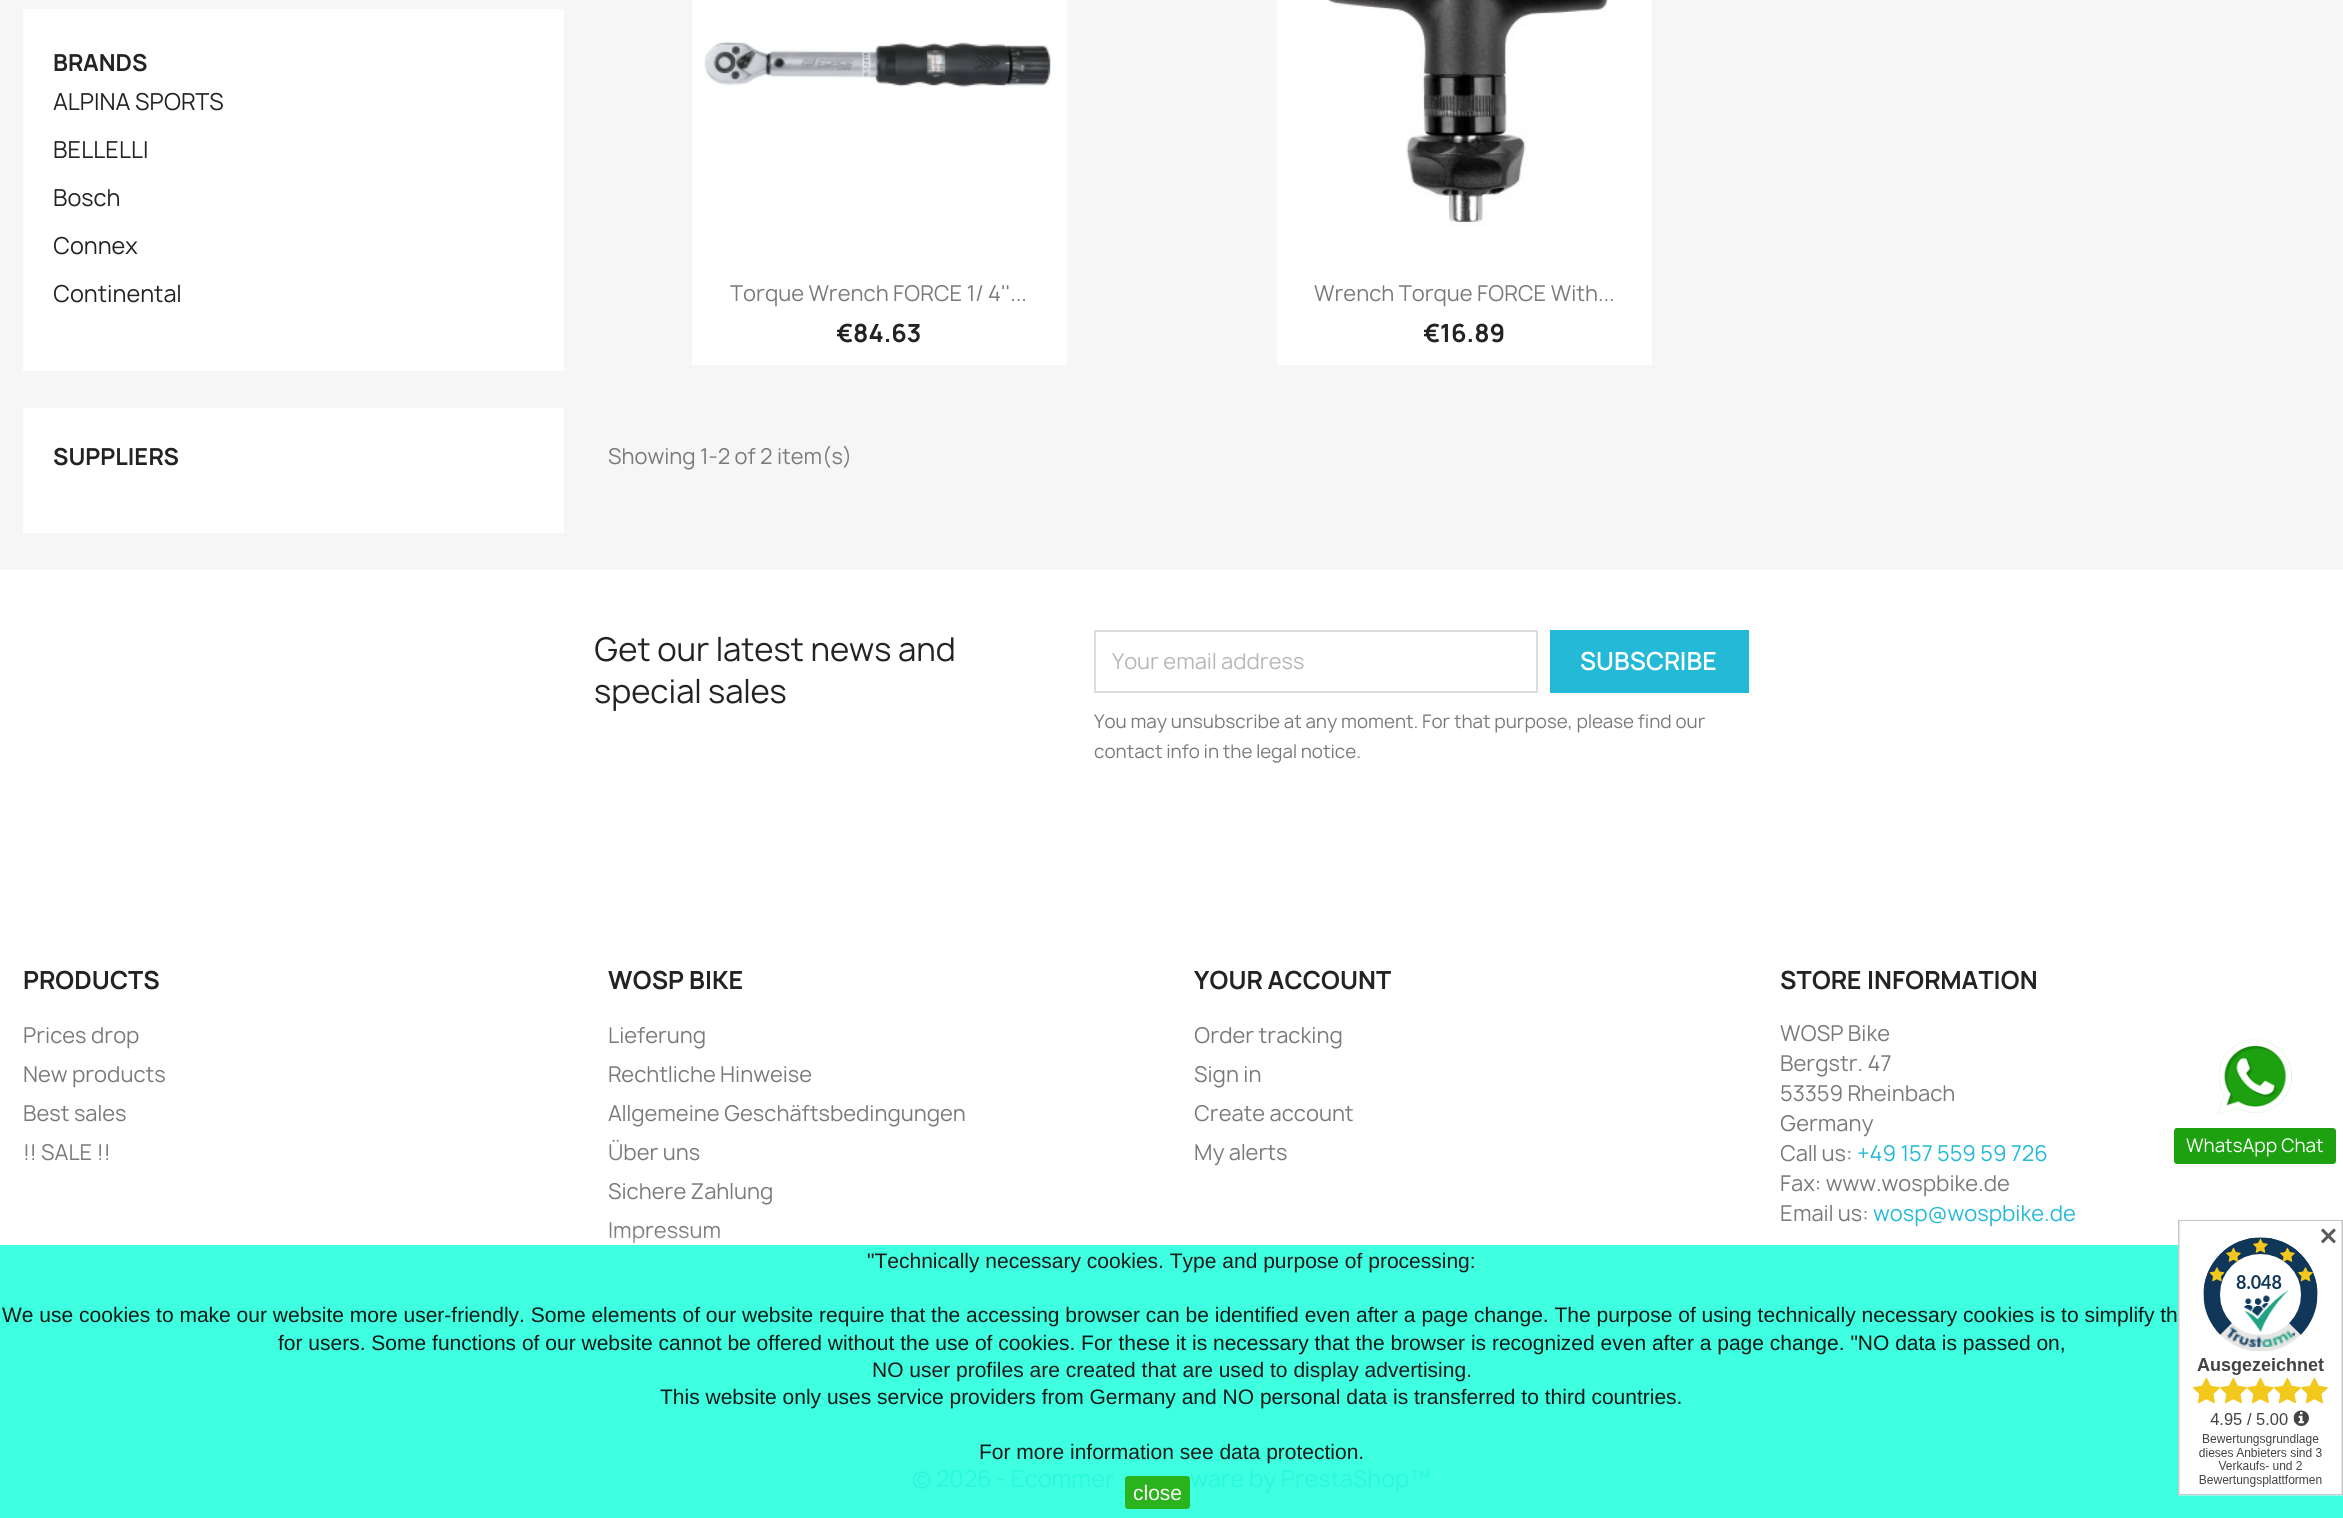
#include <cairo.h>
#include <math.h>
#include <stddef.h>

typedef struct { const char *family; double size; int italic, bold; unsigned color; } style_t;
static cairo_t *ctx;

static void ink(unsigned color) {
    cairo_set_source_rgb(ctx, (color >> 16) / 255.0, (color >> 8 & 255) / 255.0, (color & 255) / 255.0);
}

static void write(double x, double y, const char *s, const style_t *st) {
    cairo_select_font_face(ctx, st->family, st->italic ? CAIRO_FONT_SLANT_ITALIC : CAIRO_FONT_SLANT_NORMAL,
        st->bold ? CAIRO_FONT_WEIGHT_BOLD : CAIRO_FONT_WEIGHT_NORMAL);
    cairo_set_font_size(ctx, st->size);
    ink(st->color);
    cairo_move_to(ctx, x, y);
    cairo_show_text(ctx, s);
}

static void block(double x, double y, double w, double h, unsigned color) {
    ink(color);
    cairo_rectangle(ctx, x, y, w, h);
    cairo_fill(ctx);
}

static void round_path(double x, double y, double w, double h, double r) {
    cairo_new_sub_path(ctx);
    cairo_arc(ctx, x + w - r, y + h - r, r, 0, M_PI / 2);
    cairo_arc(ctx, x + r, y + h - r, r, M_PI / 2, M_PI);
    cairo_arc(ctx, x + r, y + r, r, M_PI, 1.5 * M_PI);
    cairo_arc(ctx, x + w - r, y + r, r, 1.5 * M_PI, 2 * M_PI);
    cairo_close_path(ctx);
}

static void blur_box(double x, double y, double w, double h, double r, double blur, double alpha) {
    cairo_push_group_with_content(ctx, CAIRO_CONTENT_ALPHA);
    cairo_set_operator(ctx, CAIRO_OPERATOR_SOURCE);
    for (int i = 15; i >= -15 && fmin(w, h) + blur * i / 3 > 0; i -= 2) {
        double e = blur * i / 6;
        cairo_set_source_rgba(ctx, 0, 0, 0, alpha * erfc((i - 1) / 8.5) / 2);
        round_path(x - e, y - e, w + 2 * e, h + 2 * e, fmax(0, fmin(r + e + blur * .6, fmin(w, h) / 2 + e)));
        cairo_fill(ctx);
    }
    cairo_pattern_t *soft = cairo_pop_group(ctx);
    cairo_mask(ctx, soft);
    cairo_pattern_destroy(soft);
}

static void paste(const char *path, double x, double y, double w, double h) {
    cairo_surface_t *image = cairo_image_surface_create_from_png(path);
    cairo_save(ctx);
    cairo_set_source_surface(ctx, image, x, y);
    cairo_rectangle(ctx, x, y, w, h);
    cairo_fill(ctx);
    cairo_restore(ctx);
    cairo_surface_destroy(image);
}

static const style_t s1 = {"Manrope", 22.5, 0, 1, 0x232323};
static const style_t s2 = {"Manrope", 22.5, 0, 0, 0x232323};
static const style_t s3 = {"Manrope", 21, 0, 0, 0x7a7a7a};
static const style_t s4 = {"Manrope", 24, 0, 1, 0x232323};
static const style_t s5 = {"Manrope", 31.5, 0, 0, 0x232323};
static const style_t s6 = {"Manrope", 21, 0, 0, 0xb7b7b7};
static const style_t s7 = {"Manrope SemiBold", 24, 0, 0, 0xffffff};
static const style_t s8 = {"Manrope", 18, 0, 0, 0x7a7a7a};
static const style_t s9 = {"Manrope", 21, 0, 0, 0x24b9d7};
static const style_t s10 = {"Manrope", 18, 0, 0, 0xffffff};
static const style_t s11 = {"Manrope", 22.5, 0, 0, 0x29f8db};
static const style_t s12 = {"DejaVu Sans", 24, 0, 1, 0x595959};
static const style_t s13 = {"Liberation Sans", 21, 0, 0, 0x1a1a1a};
static const style_t s14 = {"Liberation Sans", 21, 0, 0, 0x061916};
static const style_t s15 = {"Liberation Sans", 21, 0, 0, 0xffffff};

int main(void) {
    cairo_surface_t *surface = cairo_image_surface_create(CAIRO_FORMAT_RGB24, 2343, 1518);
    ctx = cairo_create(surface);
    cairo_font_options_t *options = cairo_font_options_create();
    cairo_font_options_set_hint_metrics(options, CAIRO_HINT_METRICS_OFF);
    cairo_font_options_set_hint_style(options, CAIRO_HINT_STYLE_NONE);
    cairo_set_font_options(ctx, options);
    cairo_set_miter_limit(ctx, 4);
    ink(0xffffff);
    cairo_paint(ctx);
    block(0, 1245, 2343, 273, 0x3effdf);
    block(0, 0, 2343, 570, 0xf6f6f6);
    block(23, 9, 541, 362, 0xffffff);
    write(53, 71, "BRANDS", &s1);
    write(53, 110, "ALPINA SPORTS", &s2);
    write(53, 158, "BELLELLI", &s2);
    write(53, 206, "Bosch", &s2);
    write(53, 254, "Connex", &s2);
    write(53, 302, "Continental", &s2);
    block(23, 408, 541, 125, 0xffffff);
    write(53, 465, "SUPPLIERS", &s1);
    block(692, 0, 375, 365, 0xffffff);
    paste("pic1.png", 704, 41, 347, 46);
    write(730, 301, "Torque Wrench FORCE 1/ 4''...", &s3);
    write(836, 342, "€84.63", &s4);
    block(1277, 0, 375, 365, 0xffffff);
    paste("pic2.png", 1327, 0, 281, 228);
    write(1314, 301, "Wrench Torque FORCE With...", &s3);
    write(1423, 342, "€16.89", &s4);
    write(608, 464, "Showing 1-2 of 2 item(s)", &s3);
    write(594, 661, "Get our latest news and", &s5);
    write(594, 703, "special sales", &s5);
    cairo_rectangle(ctx, 1095, 631, 442, 61);
    ink(0xdddddd);
    cairo_stroke(ctx);
    write(1112, 669, "Your email address", &s6);
    block(1550, 630, 199, 63, 0x24b9d7);
    write(1580, 670, "SUBSCRIBE", &s7);
    write(1094, 728, "You may unsubscribe at any moment. For that purpose, please find our", &s8);
    write(1094, 758, "contact info in the legal notice.", &s8);
    write(23, 989, "PRODUCTS", &s4);
    write(23, 1043, "Prices drop", &s3);
    write(23, 1082, "New products", &s3);
    write(23, 1121, "Best sales", &s3);
    write(23, 1160, "!! SALE !!", &s3);
    write(608, 989, "WOSP BIKE", &s4);
    write(608, 1043, "Lieferung", &s3);
    write(608, 1082, "Rechtliche Hinweise", &s3);
    write(608, 1121, "Allgemeine Geschäftsbedingungen", &s3);
    write(608, 1160, "Über uns", &s3);
    write(608, 1199, "Sichere Zahlung", &s3);
    write(608, 1238, "Impressum", &s3);
    write(1194, 989, "YOUR ACCOUNT", &s4);
    write(1194, 1043, "Order tracking", &s3);
    write(1194, 1082, "Sign in", &s3);
    write(1194, 1121, "Create account", &s3);
    write(1194, 1160, "My alerts", &s3);
    write(1780, 989, "STORE INFORMATION", &s4);
    write(1780, 1041, "WOSP Bike", &s3);
    write(1780, 1071, "Bergstr. 47", &s3);
    write(1780, 1101, "53359 Rheinbach", &s3);
    write(1780, 1131, "Germany", &s3);
    write(1780, 1161, "Call us:", &s3);
    write(1857, 1161, "+49 157 559 59 726", &s9);
    write(1780, 1191, "Fax: www.wospbike.de", &s3);
    write(1780, 1221, "Email us:", &s3);
    write(1873, 1221, "wosp@wospbike.de", &s9);
    paste("pic3.png", 2217, 1039, 75, 76);
    ink(0x1da110);
    round_path(2174, 1128, 162, 36, 3);
    cairo_fill(ctx);
    write(2186, 1152, "WhatsApp Chat", &s10);
    write(912, 1487, "© 2026 - Ecommer", &s11);
    write(1190, 1487, "ware by PrestaShop™", &s11);
    cairo_save(ctx);
    cairo_rectangle(ctx, 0, 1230, 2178, 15);
    cairo_clip(ctx);
    ink(0xffffff);
    blur_box(0, 1245, 2343, 273, 0, 7.5, 0.9);
    cairo_restore(ctx);
    paste("pic4.png", 2178, 1219, 165, 277);
    write(2318, 1245, "✕", &s12);
    write(867, 1268, "\"Technically necessary cookies. Type and purpose of processing:", &s13);
    write(2, 1322, "We use cookies to make our website more user-friendly. Some elements of our website require that the accessing browser can be identified even after a page change. The purpose of using technically necessary cookies is to simplify th", &s14);
    write(278, 1350, "for users. Some functions of our website cannot be offered without the use of cookies. For these it is necessary that the browser is recognized even after a page change. \"NO data is passed on,", &s14);
    write(872, 1377, "NO user profiles are created that are used to display advertising.", &s13);
    write(660, 1404, "This website only uses service providers from Germany and NO personal data is transferred to third countries.", &s14);
    write(979, 1459, "For more information see data protection.", &s13);
    cairo_set_source_rgba(ctx, 0.157, 0.671, 0.027, 0.9);
    round_path(1125, 1476, 65, 33, 3);
    cairo_fill(ctx);
    write(1133, 1500, "close", &s15);
    cairo_surface_write_to_png(surface, "screenshot.png");
    cairo_font_options_destroy(options);
    cairo_destroy(ctx);
    cairo_surface_destroy(surface);
    return 0;
}
